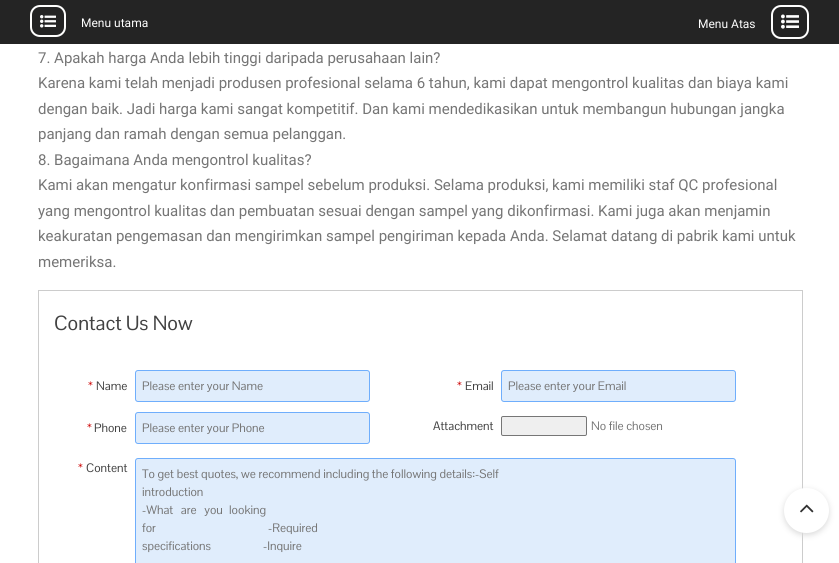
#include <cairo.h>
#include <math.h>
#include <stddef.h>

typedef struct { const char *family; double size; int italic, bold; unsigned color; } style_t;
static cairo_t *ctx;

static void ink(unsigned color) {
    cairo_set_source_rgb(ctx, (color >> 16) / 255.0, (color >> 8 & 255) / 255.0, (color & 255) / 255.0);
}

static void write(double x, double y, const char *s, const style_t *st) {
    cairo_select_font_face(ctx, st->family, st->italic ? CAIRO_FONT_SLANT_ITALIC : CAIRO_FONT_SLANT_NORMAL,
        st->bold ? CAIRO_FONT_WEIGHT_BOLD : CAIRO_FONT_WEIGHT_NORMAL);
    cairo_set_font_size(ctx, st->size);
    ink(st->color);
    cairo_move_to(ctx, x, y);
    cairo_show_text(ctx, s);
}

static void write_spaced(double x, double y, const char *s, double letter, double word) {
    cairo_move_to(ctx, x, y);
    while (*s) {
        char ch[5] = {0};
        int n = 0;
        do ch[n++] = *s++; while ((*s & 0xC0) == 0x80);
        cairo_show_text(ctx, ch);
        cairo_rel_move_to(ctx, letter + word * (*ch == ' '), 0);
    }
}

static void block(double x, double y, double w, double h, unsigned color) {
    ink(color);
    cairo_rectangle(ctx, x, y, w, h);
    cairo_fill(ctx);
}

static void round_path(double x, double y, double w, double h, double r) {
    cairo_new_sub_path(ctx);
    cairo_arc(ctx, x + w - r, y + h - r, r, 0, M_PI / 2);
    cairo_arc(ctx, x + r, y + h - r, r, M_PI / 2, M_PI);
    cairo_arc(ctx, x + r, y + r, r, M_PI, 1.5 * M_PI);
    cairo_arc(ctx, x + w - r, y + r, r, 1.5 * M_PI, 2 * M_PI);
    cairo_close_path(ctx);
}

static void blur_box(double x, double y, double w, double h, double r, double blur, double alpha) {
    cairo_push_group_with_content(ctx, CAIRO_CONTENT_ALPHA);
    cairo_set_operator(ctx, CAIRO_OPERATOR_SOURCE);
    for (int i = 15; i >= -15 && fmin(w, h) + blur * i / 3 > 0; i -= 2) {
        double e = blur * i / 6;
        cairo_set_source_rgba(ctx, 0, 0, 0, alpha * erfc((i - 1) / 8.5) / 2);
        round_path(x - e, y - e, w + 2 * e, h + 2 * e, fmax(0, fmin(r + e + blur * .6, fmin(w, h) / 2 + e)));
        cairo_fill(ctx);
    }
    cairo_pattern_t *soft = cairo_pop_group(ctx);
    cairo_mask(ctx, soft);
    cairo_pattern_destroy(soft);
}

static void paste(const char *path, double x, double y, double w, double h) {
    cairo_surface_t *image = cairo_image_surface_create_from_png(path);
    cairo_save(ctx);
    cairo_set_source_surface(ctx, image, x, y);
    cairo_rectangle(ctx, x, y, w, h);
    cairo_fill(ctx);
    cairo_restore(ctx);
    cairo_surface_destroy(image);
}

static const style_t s1 = {"Roboto", 12, 0, 0, 0xffffff};
static const style_t s2 = {"Roboto", 15, 0, 0, 0x757575};
static const style_t s3 = {"Pontano Sans", 20, 0, 0, 0x414141};
static const style_t s4 = {"Pontano Sans", 12, 0, 0, 0xcc0000};
static const style_t s5 = {"Pontano Sans", 12, 0, 0, 0x414141};
static const style_t s6 = {"Pontano Sans", 12, 0, 0, 0x757575};

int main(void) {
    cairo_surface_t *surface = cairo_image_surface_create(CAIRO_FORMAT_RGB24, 839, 563);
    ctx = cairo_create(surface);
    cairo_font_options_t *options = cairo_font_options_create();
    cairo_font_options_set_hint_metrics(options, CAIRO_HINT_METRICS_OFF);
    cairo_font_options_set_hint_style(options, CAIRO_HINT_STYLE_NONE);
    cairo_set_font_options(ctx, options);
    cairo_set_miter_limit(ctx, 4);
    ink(0xffffff);
    cairo_paint(ctx);
    block(0, 0, 839, 44, 0x242424);
    round_path(31, 6, 34, 30, 9);
    ink(0xfffffe);
    cairo_stroke(ctx);
    paste("pic1.png", 40, 15, 16, 13);
    write(81, 27, "Menu utama", &s1);
    write(698, 28, "Menu Atas", &s1);
    round_path(772, 6, 36, 32, 9);
    cairo_stroke(ctx);
    paste("pic2.png", 781, 14, 18, 15);
    write(38, 63, "7. Apakah harga Anda lebih tinggi daripada perusahaan lain?", &s2);
    write(38, 88, "Karena kami telah menjadi produsen profesional selama 6 tahun, kami dapat mengontrol kualitas dan biaya kami", &s2);
    write(38, 114, "dengan baik. Jadi harga kami sangat kompetitif. Dan kami mendedikasikan untuk membangun hubungan jangka", &s2);
    write(38, 139, "panjang dan ramah dengan semua pelanggan.", &s2);
    write(38, 165, "8. Bagaimana Anda mengontrol kualitas?", &s2);
    write(38, 190, "Kami akan mengatur konfirmasi sampel sebelum produksi. Selama produksi, kami memiliki staf QC profesional", &s2);
    write(38, 216, "yang mengontrol kualitas dan pembuatan sesuai dengan sampel yang dikonfirmasi. Kami juga akan menjamin", &s2);
    write(38, 241, "keakuratan pengemasan dan mengirimkan sampel pengiriman kepada Anda. Selamat datang di pabrik kami untuk", &s2);
    write(38, 267, "memeriksa.", &s2);
    cairo_rectangle(ctx, 38.5, 290.5, 764, 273);
    ink(0xcccccc);
    cairo_set_line_width(ctx, 1);
    cairo_stroke(ctx);
    write(54, 330, "Contact Us Now", &s3);
    write(88, 390, "*", &s4);
    write(96, 390, "Name", &s5);
    ink(0xe0edfc);
    round_path(135.5, 370.5, 234, 31, 2.5);
    cairo_fill_preserve(ctx);
    ink(0x6faefc);
    cairo_stroke(ctx);
    write(142, 390, "Please enter your Name", &s6);
    write(457, 390, "*", &s4);
    write(465, 390, "Email", &s5);
    ink(0xe0edfc);
    round_path(501.5, 370.5, 234, 31, 2.5);
    cairo_fill_preserve(ctx);
    ink(0x6faefc);
    cairo_stroke(ctx);
    write(508, 390, "Please enter your Email", &s6);
    write(87, 432, "*", &s4);
    write(94, 432, "Phone", &s5);
    ink(0xe0edfc);
    round_path(135.5, 412.5, 234, 31, 2.5);
    cairo_fill_preserve(ctx);
    ink(0x6faefc);
    cairo_stroke(ctx);
    write(142, 432, "Please enter your Phone", &s6);
    write(433, 430, "Attachment", &s5);
    ink(0xefefef);
    round_path(501.5, 416.5, 85, 19, 1.5);
    cairo_fill_preserve(ctx);
    ink(0x767676);
    cairo_stroke(ctx);
    write(591, 430, "No file chosen", &s6);
    write(78, 472, "*", &s4);
    write(86, 472, "Content", &s5);
    ink(0xe0edfc);
    round_path(135.5, 458.5, 600, 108, 2.5);
    cairo_fill_preserve(ctx);
    ink(0x6faefc);
    cairo_stroke(ctx);
    write(142, 478, "To get best quotes, we recommend including the following details:-Self", &s6);
    write(142, 496, "introduction", &s6);
    write_spaced(142, 514, "-What are you", 0, 5);
    write(229, 514, "looking", &s6);
    write(142, 532, "for", &s6);
    write(268, 532, "-Required", &s6);
    write(142, 550, "specifications", &s6);
    write(263, 550, "-Inquire", &s6);
    ink(0xdadada);
    blur_box(784, 490, 45, 45, 22.5, 3, 1);
    ink(0xffffff);
    cairo_arc(ctx, 806.5, 510.5, 22.5, 0, 2 * M_PI);
    cairo_fill(ctx);
    paste("pic3.png", 800, 504, 14, 9);
    cairo_surface_write_to_png(surface, "screenshot.png");
    cairo_font_options_destroy(options);
    cairo_destroy(ctx);
    cairo_surface_destroy(surface);
    return 0;
}
